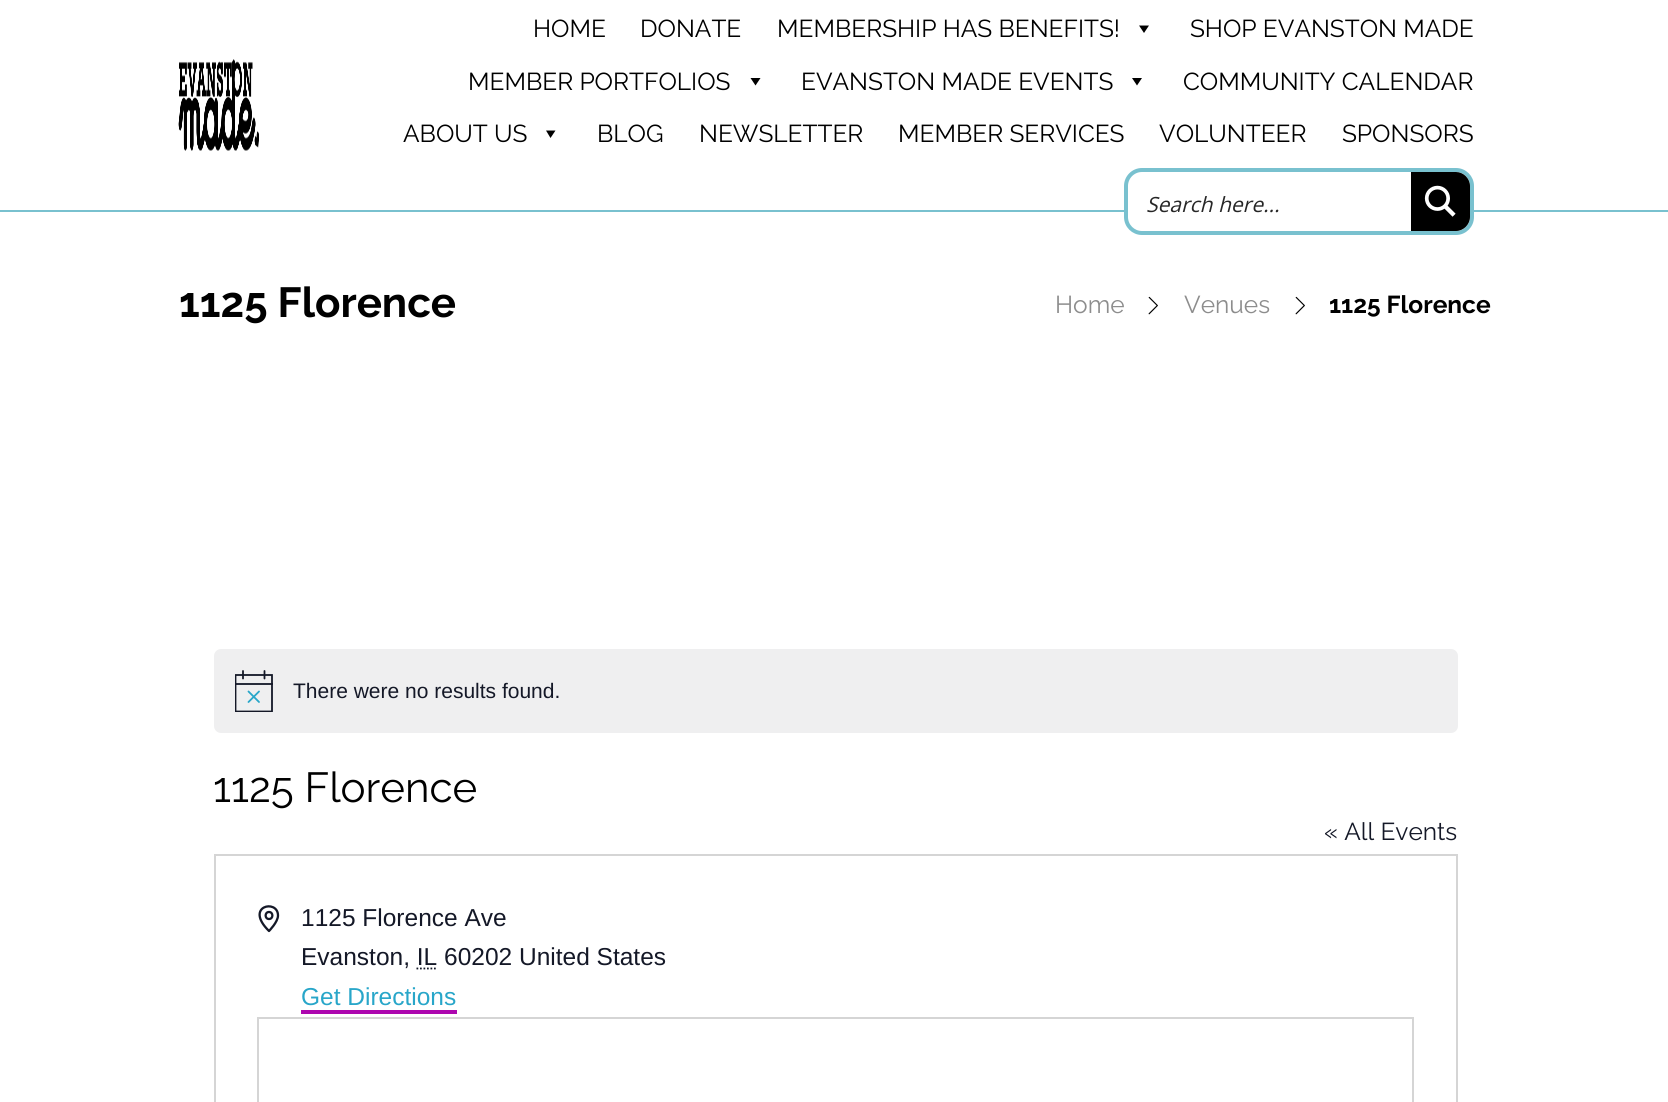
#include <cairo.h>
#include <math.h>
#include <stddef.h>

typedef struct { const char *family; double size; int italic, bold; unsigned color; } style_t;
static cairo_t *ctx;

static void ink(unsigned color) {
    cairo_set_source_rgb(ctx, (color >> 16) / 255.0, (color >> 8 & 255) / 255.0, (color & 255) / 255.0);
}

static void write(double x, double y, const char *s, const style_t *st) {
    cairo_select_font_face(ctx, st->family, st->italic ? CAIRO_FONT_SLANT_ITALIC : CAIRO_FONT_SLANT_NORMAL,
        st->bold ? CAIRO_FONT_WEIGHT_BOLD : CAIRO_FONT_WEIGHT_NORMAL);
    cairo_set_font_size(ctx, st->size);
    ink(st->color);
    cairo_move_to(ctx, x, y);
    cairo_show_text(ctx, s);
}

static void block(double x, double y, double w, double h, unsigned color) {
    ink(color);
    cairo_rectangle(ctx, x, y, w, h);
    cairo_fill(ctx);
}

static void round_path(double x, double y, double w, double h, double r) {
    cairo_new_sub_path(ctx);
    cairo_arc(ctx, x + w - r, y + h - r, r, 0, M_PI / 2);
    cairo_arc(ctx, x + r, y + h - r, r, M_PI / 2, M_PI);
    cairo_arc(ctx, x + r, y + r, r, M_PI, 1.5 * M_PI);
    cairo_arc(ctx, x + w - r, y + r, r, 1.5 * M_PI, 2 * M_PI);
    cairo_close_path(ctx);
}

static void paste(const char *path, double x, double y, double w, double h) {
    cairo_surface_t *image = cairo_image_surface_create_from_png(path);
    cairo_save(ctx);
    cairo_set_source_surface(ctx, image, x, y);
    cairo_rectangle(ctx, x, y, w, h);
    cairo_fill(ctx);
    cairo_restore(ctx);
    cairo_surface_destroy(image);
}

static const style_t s1 = {"Raleway", 24.5, 0, 0, 0x000000};
static const style_t s2 = {"Open Sans", 21, 1, 0, 0x262626};
static const style_t s3 = {"Raleway", 42, 0, 1, 0x000000};
static const style_t s4 = {"Raleway", 24.5, 0, 0, 0x8d8d8d};
static const style_t s5 = {"Raleway", 24.5, 0, 1, 0x000000};
static const style_t s6 = {"Liberation Sans", 21, 0, 0, 0x141827};
static const style_t s7 = {"Raleway", 42, 0, 0, 0x000000};
static const style_t s8 = {"Raleway", 24.5, 0, 0, 0x141827};
static const style_t s9 = {"Liberation Sans", 24.5, 0, 0, 0x141827};
static const style_t s10 = {"Liberation Sans", 24.5, 0, 0, 0x28a6c9};

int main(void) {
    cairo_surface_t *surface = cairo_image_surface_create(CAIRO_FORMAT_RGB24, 1668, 1102);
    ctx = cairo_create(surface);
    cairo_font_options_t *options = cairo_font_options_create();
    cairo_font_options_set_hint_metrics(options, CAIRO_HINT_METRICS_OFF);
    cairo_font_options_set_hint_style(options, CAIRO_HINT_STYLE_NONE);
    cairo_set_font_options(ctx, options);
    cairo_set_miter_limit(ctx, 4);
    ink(0xffffff);
    cairo_paint(ctx);
    block(0, 210, 1668, 2, 0x79c1cf);
    paste("pic1.png", 178, 59, 81, 92);
    write(533, 37, "HOME", &s1);
    write(640, 37, "DONATE", &s1);
    write(777, 37, "MEMBERSHIP HAS BENEFITS!", &s1);
    cairo_new_path(ctx);
    cairo_move_to(ctx, 1149, 25.5);
    cairo_line_to(ctx, 1144, 33);
    cairo_line_to(ctx, 1139, 25.5);
    cairo_close_path(ctx);
    cairo_fill(ctx);
    write(1190, 37, "SHOP EVANSTON MADE", &s1);
    write(468, 90, "MEMBER PORTFOLIOS", &s1);
    cairo_new_path(ctx);
    cairo_move_to(ctx, 760.5, 78);
    cairo_line_to(ctx, 755.5, 85.5);
    cairo_line_to(ctx, 750.5, 78);
    cairo_close_path(ctx);
    cairo_fill(ctx);
    write(801, 90, "EVANSTON MADE EVENTS", &s1);
    cairo_new_path(ctx);
    cairo_move_to(ctx, 1142, 78);
    cairo_line_to(ctx, 1137, 85.5);
    cairo_line_to(ctx, 1132, 78);
    cairo_close_path(ctx);
    cairo_fill(ctx);
    write(1183, 90, "COMMUNITY CALENDAR", &s1);
    write(403, 142, "ABOUT US", &s1);
    cairo_new_path(ctx);
    cairo_move_to(ctx, 555.5, 130.5);
    cairo_line_to(ctx, 550.5, 138);
    cairo_line_to(ctx, 546, 130.5);
    cairo_close_path(ctx);
    cairo_fill(ctx);
    write(597, 142, "BLOG", &s1);
    write(699, 142, "NEWSLETTER", &s1);
    write(898, 142, "MEMBER SERVICES", &s1);
    write(1159, 142, "VOLUNTEER", &s1);
    write(1342, 142, "SPONSORS", &s1);
    ink(0xffffff);
    round_path(1126, 170, 346, 63, 16);
    cairo_fill_preserve(ctx);
    ink(0x79c1cf);
    cairo_set_line_width(ctx, 4);
    cairo_stroke(ctx);
    write(1146, 212, "Search here...", &s2);
    ink(0x000000);
    cairo_new_path(ctx);
    cairo_move_to(ctx, 1411, 172);
    cairo_line_to(ctx, 1456, 172);
    cairo_curve_to(ctx, 1463.5, 172, 1470, 178.5, 1470, 186);
    cairo_line_to(ctx, 1470, 217);
    cairo_curve_to(ctx, 1470, 224.5, 1463.5, 231, 1456, 231);
    cairo_line_to(ctx, 1411, 231);
    cairo_close_path(ctx);
    cairo_fill(ctx);
    paste("pic2.png", 1424, 185, 32, 32);
    write(179, 317, "1125 Florence", &s3);
    write(1055, 313, "Home", &s4);
    paste("pic3.png", 1148, 296, 10, 19);
    write(1184, 313, "Venues", &s4);
    paste("pic3.png", 1295, 296, 10, 19);
    write(1329, 313, "1125 Florence", &s5);
    ink(0xefeff0);
    round_path(214, 649, 1244, 84, 7);
    cairo_fill(ctx);
    cairo_save(ctx);
    cairo_rectangle(ctx, 235, 670, 38, 42);
    cairo_clip(ctx);
    cairo_new_path(ctx);
    cairo_move_to(ctx, 235.5, 675);
    cairo_line_to(ctx, 272, 675);
    cairo_line_to(ctx, 272, 711.5);
    cairo_line_to(ctx, 235.5, 711.5);
    cairo_close_path(ctx);
    ink(0x141827);
    cairo_set_line_width(ctx, 1.8);
    cairo_stroke(ctx);
    cairo_restore(ctx);
    cairo_new_path(ctx);
    cairo_move_to(ctx, 248.5, 691.5);
    cairo_line_to(ctx, 259, 702);
    cairo_move_to(ctx, 259, 691.5);
    cairo_line_to(ctx, 248.5, 702);
    ink(0x28a6c9);
    cairo_set_line_width(ctx, 1.8);
    cairo_set_line_cap(ctx, CAIRO_LINE_CAP_ROUND);
    cairo_stroke(ctx);
    cairo_new_path(ctx);
    cairo_move_to(ctx, 243, 671);
    cairo_line_to(ctx, 243, 678.5);
    cairo_move_to(ctx, 264.5, 671);
    cairo_line_to(ctx, 264.5, 678.5);
    ink(0x141827);
    cairo_stroke(ctx);
    cairo_set_source_rgba(ctx, 0.078, 0.094, 0.153, 0.9);
    cairo_rectangle(ctx, 235, 683, 38, 2);
    cairo_fill(ctx);
    write(293, 698, "There were no results found.", &s6);
    write(213, 802, "1125 Florence", &s7);
    write(1324, 840, "« All Events", &s8);
    cairo_rectangle(ctx, 215, 855, 1242, 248);
    ink(0xd5d5d5);
    cairo_set_line_width(ctx, 2);
    cairo_set_line_cap(ctx, CAIRO_LINE_CAP_BUTT);
    cairo_stroke(ctx);
    cairo_new_path(ctx);
    cairo_move_to(ctx, 278, 915.5);
    cairo_curve_to(ctx, 278, 922, 269, 931, 269, 931);
    cairo_curve_to(ctx, 243.5, 906, 278, 898.5, 278, 915.5);
    cairo_close_path(ctx);
    cairo_move_to(ctx, 269, 919);
    cairo_curve_to(ctx, 273.5, 919, 273.5, 912, 269, 912);
    cairo_curve_to(ctx, 264.5, 912, 264.5, 919, 269, 919);
    cairo_close_path(ctx);
    ink(0x141827);
    cairo_set_line_width(ctx, 2.3);
    cairo_set_line_cap(ctx, CAIRO_LINE_CAP_ROUND);
    cairo_set_line_join(ctx, CAIRO_LINE_JOIN_ROUND);
    cairo_stroke(ctx);
    write(301, 926, "1125 Florence Ave", &s9);
    write(301, 965, "Evanston, IL 60202 United States", &s9);
    cairo_new_path(ctx);
    cairo_move_to(ctx, 416.5, 968.5);
    cairo_line_to(ctx, 437, 968.5);
    cairo_set_line_width(ctx, 1.8);
    cairo_set_line_cap(ctx, CAIRO_LINE_CAP_BUTT);
    cairo_set_line_join(ctx, CAIRO_LINE_JOIN_MITER);
    cairo_set_dash(ctx, (double[]){1.75, 1.75}, 2, 0);
    cairo_stroke(ctx);
    write(301, 1005, "Get Directions", &s10);
    block(301, 1010, 156, 4, 0xad07af);
    cairo_rectangle(ctx, 258, 1018, 1155, 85);
    ink(0xd5d5d5);
    cairo_set_line_width(ctx, 2);
    cairo_set_dash(ctx, NULL, 0, 0);
    cairo_stroke(ctx);
    cairo_surface_write_to_png(surface, "screenshot.png");
    cairo_font_options_destroy(options);
    cairo_destroy(ctx);
    cairo_surface_destroy(surface);
    return 0;
}
